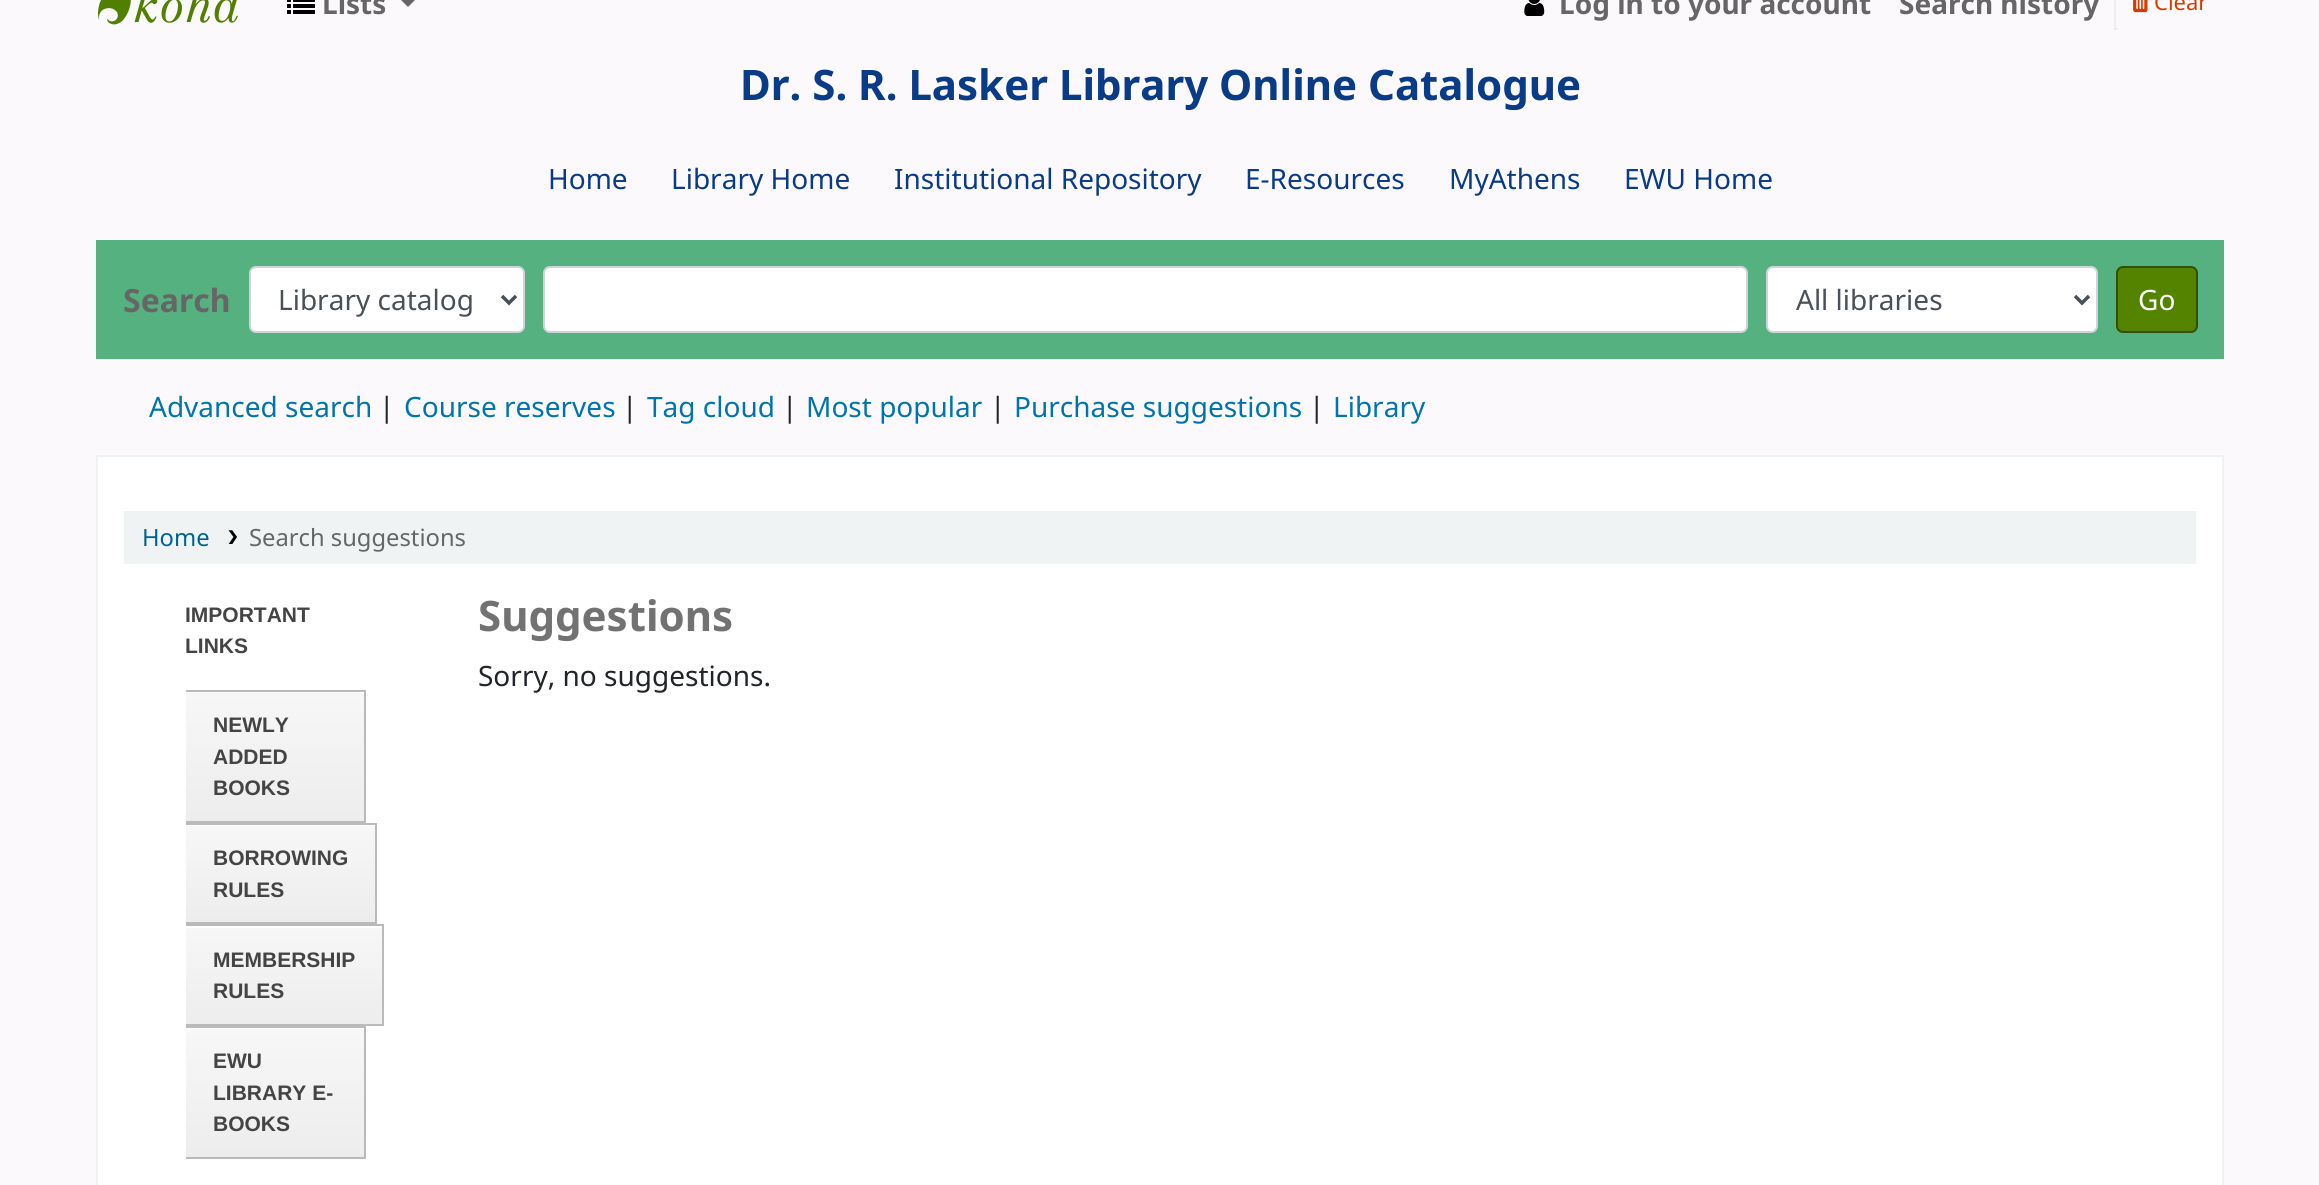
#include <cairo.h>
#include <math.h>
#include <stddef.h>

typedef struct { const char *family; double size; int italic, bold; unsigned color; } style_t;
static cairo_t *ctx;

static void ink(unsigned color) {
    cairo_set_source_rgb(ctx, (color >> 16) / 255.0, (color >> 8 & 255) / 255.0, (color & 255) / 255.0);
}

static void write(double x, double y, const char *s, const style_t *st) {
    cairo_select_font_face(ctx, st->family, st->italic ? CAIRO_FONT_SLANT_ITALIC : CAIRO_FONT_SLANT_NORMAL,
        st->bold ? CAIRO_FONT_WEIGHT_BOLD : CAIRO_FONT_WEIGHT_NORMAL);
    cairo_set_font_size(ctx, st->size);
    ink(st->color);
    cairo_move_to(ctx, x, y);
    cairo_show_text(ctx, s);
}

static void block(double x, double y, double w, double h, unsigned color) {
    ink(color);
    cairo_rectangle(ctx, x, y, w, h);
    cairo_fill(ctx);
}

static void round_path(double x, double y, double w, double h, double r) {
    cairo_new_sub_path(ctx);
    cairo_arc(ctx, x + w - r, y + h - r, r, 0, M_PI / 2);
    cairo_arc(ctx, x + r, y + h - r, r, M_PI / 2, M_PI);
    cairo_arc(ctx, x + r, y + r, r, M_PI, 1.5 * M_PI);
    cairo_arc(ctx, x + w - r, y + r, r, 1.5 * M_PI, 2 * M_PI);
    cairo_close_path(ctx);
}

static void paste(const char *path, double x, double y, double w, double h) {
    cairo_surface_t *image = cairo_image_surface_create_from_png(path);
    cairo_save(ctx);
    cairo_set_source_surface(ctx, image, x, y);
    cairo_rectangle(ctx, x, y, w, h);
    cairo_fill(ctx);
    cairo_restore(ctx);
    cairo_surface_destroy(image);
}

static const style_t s1 = {"Noto Sans", 28, 0, 1, 0x666666};
static const style_t s2 = {"Noto Sans", 22, 0, 0, 0xd43c00};
static const style_t s3 = {"Noto Sans", 42, 0, 1, 0x0a3b86};
static const style_t s4 = {"Noto Sans", 28, 0, 0, 0x0a3b86};
static const style_t s5 = {"Noto Sans", 32, 0, 1, 0x666666};
static const style_t s6 = {"Noto Sans", 28, 0, 0, 0x495057};
static const style_t s7 = {"Noto Sans", 28, 0, 0, 0xffffff};
static const style_t s8 = {"Noto Sans", 28, 0, 0, 0x0074ad};
static const style_t s9 = {"Noto Sans", 28, 0, 0, 0x212529};
static const style_t s10 = {"Noto Sans", 23.75, 0, 0, 0x006394};
static const style_t s11 = {"Noto Sans", 23.75, 0, 0, 0x666666};
static const style_t s12 = {"Liberation Sans", 21, 0, 1, 0x444444};
static const style_t s13 = {"Noto Sans", 42, 0, 1, 0x727272};

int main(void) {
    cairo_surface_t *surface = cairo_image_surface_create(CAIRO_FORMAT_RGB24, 2319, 1185);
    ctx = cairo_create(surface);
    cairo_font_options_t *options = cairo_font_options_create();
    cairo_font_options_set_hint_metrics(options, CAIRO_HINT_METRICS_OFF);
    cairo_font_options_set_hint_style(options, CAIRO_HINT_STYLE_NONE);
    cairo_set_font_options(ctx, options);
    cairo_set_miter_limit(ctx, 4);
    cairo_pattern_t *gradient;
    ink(0xfcf9fc);
    cairo_paint(ctx);
    paste("pic1.png", 98, 0, 140, 25);
    paste("pic2.png", 287, 0, 28, 14);
    write(322, 14, "Lists", &s1);
    cairo_new_path(ctx);
    cairo_move_to(ctx, 401, 0);
    cairo_line_to(ctx, 415, 0);
    cairo_line_to(ctx, 408, 7);
    cairo_close_path(ctx);
    cairo_fill(ctx);
    paste("pic3.png", 1524, 0, 21, 16);
    write(1559, 14, "Log in to your account", &s1);
    write(1899, 14, "Search history", &s1);
    block(2114, 28, 4, 2, 0xeeeeee);
    block(2114, 0, 2, 30, 0xeeeeee);
    paste("pic4.png", 2133, 0, 15, 13);
    write(2154, 10, "Clear", &s2);
    write(740, 100, "Dr. S. R. Lasker Library Online Catalogue", &s3);
    write(548, 189, "Home", &s4);
    write(671, 189, "Library Home", &s4);
    write(894, 189, "Institutional Repository", &s4);
    write(1245, 189, "E-Resources", &s4);
    write(1449, 189, "MyAthens", &s4);
    write(1624, 189, "EWU Home", &s4);
    block(96, 240, 2128, 119, 0x55b280);
    write(123, 312, "Search", &s5);
    ink(0xffffff);
    round_path(250, 267, 274, 65, 6);
    cairo_fill_preserve(ctx);
    ink(0xced4da);
    cairo_stroke(ctx);
    cairo_new_path(ctx);
    cairo_move_to(ctx, 502, 296);
    cairo_line_to(ctx, 509, 303);
    cairo_line_to(ctx, 516, 296);
    ink(0x495057);
    cairo_set_line_width(ctx, 3.5);
    cairo_stroke(ctx);
    write(278, 310, "Library catalog", &s6);
    ink(0xffffff);
    round_path(544, 267, 1203, 65, 6);
    cairo_fill_preserve(ctx);
    ink(0xced4da);
    cairo_set_line_width(ctx, 2);
    cairo_stroke(ctx);
    ink(0xffffff);
    round_path(1767, 267, 330, 65, 6);
    cairo_fill_preserve(ctx);
    ink(0xced4da);
    cairo_stroke(ctx);
    cairo_new_path(ctx);
    cairo_move_to(ctx, 2075, 296);
    cairo_line_to(ctx, 2082, 303);
    cairo_line_to(ctx, 2089, 296);
    ink(0x495057);
    cairo_set_line_width(ctx, 3.5);
    cairo_stroke(ctx);
    write(1796, 310, "All libraries", &s6);
    ink(0x548300);
    round_path(2117, 267, 80, 65, 6);
    cairo_fill_preserve(ctx);
    ink(0x335000);
    cairo_set_line_width(ctx, 2);
    cairo_stroke(ctx);
    write(2138, 310, "Go", &s7);
    write(149, 417, "Advanced search", &s8);
    write(379, 417, "|", &s9);
    write(404, 417, "Course reserves", &s8);
    write(622, 417, "|", &s9);
    write(647, 417, "Tag cloud", &s8);
    write(782, 417, "|", &s9);
    write(806, 417, "Most popular", &s8);
    write(990, 417, "|", &s9);
    write(1014, 417, "Purchase suggestions", &s8);
    write(1309, 417, "|", &s9);
    write(1333, 417, "Library", &s8);
    ink(0xffffff);
    cairo_rectangle(ctx, 97, 456, 2126, 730);
    cairo_fill_preserve(ctx);
    ink(0xf0f3f3);
    cairo_stroke(ctx);
    block(124, 511, 2072, 53, 0xf0f3f3);
    write(142, 546, "Home", &s10);
    paste("pic5.png", 228, 530, 9, 14);
    write(249, 546, "Search suggestions", &s11);
    write(185, 622, "IMPORTANT", &s12);
    write(185, 653, "LINKS", &s12);
    gradient = cairo_pattern_create_linear(275, 691, 275, 821);
    cairo_pattern_add_color_stop_rgba(gradient, 0, 0.969, 0.969, 0.969, 1);
    cairo_pattern_add_color_stop_rgba(gradient, 1, 0.929, 0.929, 0.929, 1);
    cairo_set_source(ctx, gradient);
    cairo_pattern_destroy(gradient);
    cairo_rectangle(ctx, 186, 693, 178, 128);
    cairo_fill(ctx);
    block(184, 690, 182, 2, 0xbababa);
    block(364, 690, 2, 133, 0xbababa);
    block(184, 821, 182, 2, 0xbababa);
    block(184, 690, 2, 133, 0xffffff);
    write(213, 732, "NEWLY", &s12);
    write(213, 764, "ADDED", &s12);
    write(213, 795, "BOOKS", &s12);
    gradient = cairo_pattern_create_linear(280, 824, 280, 922);
    cairo_pattern_add_color_stop_rgba(gradient, 0, 0.969, 0.969, 0.969, 1);
    cairo_pattern_add_color_stop_rgba(gradient, 1, 0.929, 0.929, 0.929, 1);
    cairo_set_source(ctx, gradient);
    cairo_pattern_destroy(gradient);
    cairo_rectangle(ctx, 186, 826, 189, 96);
    cairo_fill(ctx);
    block(184, 823, 192, 2, 0xbababa);
    block(375, 823, 2, 101, 0xbababa);
    block(184, 922, 192, 2, 0xbababa);
    block(184, 823, 2, 101, 0xffffff);
    write(213, 865, "BORROWING", &s12);
    write(213, 897, "RULES", &s12);
    gradient = cairo_pattern_create_linear(284, 926, 284, 1024);
    cairo_pattern_add_color_stop_rgba(gradient, 0, 0.969, 0.969, 0.969, 1);
    cairo_pattern_add_color_stop_rgba(gradient, 1, 0.929, 0.929, 0.929, 1);
    cairo_set_source(ctx, gradient);
    cairo_pattern_destroy(gradient);
    cairo_rectangle(ctx, 186, 928, 196, 96);
    cairo_fill(ctx);
    block(184, 924, 199, 2, 0xbababa);
    block(382, 924, 2, 102, 0xbababa);
    block(184, 1024, 199, 2, 0xbababa);
    block(184, 924, 2, 102, 0xffffff);
    write(213, 967, "MEMBERSHIP", &s12);
    write(213, 998, "RULES", &s12);
    gradient = cairo_pattern_create_linear(275, 1027, 275, 1157);
    cairo_pattern_add_color_stop_rgba(gradient, 0, 0.969, 0.969, 0.969, 1);
    cairo_pattern_add_color_stop_rgba(gradient, 1, 0.929, 0.929, 0.929, 1);
    cairo_set_source(ctx, gradient);
    cairo_pattern_destroy(gradient);
    cairo_rectangle(ctx, 186, 1029, 178, 128);
    cairo_fill(ctx);
    block(184, 1026, 182, 2, 0xbababa);
    block(364, 1026, 2, 133, 0xbababa);
    block(184, 1157, 182, 2, 0xbababa);
    block(184, 1026, 2, 133, 0xffffff);
    write(213, 1068, "EWU", &s12);
    write(213, 1100, "LIBRARY E-", &s12);
    write(213, 1131, "BOOKS", &s12);
    write(478, 631, "Suggestions", &s13);
    write(478, 686, "Sorry, no suggestions.", &s9);
    cairo_surface_write_to_png(surface, "screenshot.png");
    cairo_font_options_destroy(options);
    cairo_destroy(ctx);
    cairo_surface_destroy(surface);
    return 0;
}
